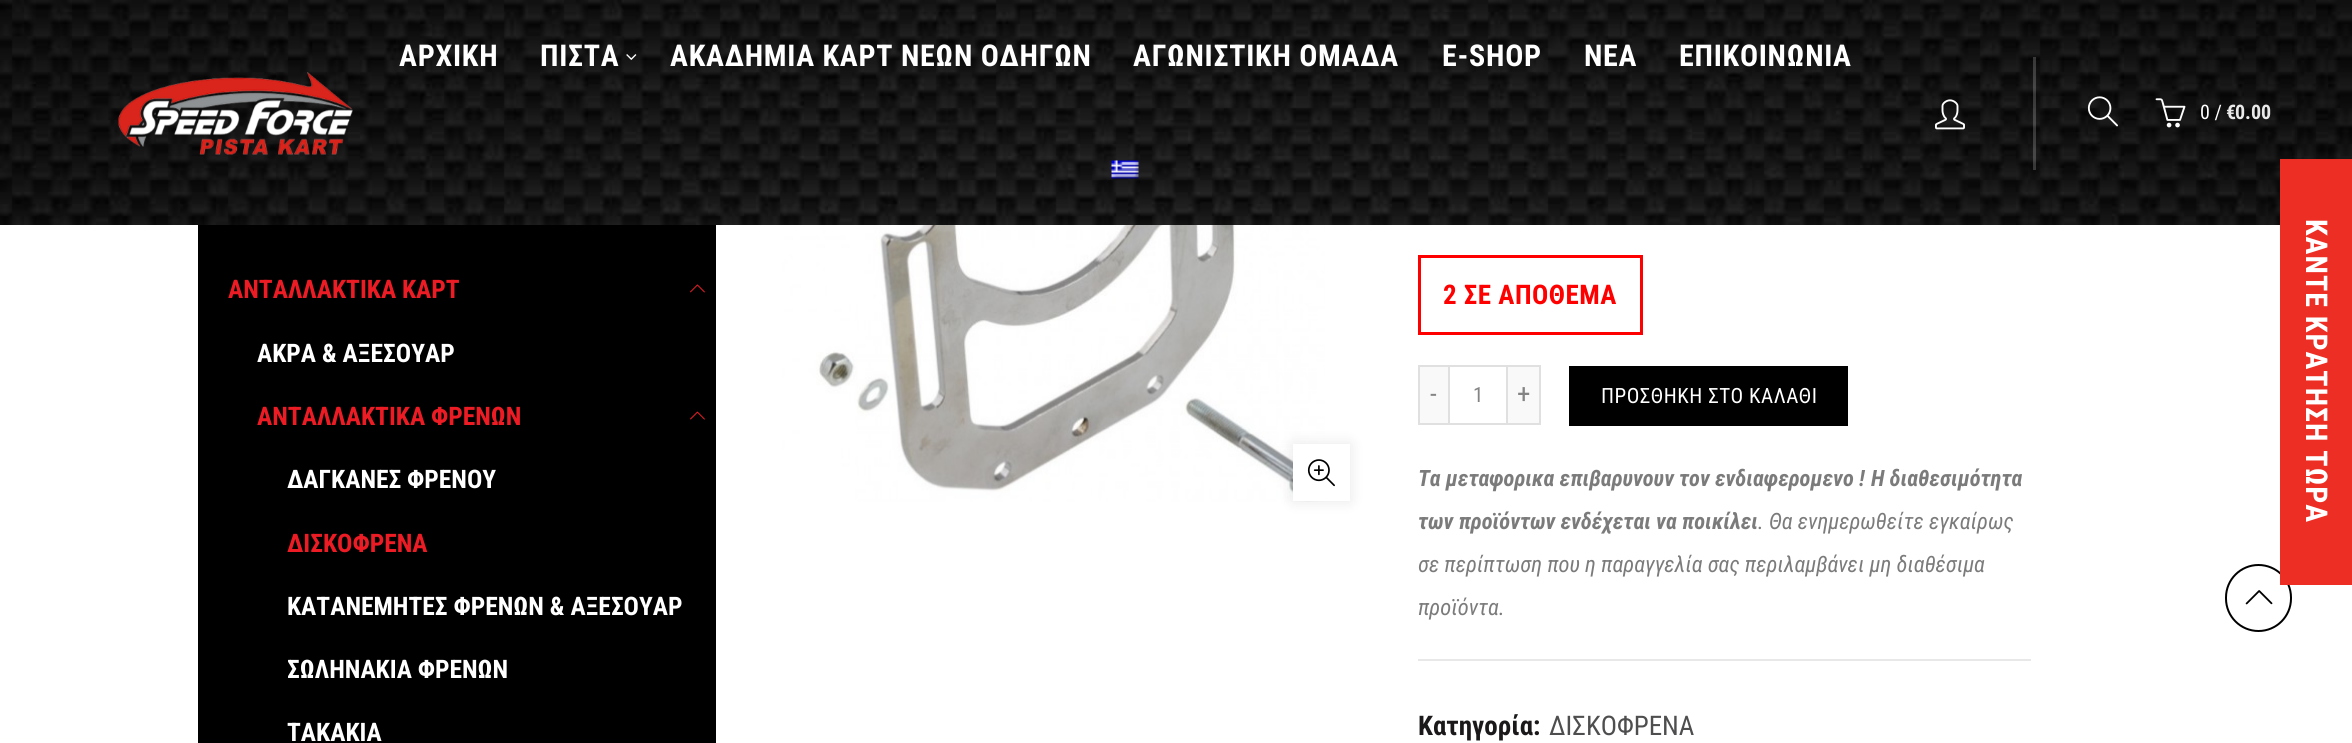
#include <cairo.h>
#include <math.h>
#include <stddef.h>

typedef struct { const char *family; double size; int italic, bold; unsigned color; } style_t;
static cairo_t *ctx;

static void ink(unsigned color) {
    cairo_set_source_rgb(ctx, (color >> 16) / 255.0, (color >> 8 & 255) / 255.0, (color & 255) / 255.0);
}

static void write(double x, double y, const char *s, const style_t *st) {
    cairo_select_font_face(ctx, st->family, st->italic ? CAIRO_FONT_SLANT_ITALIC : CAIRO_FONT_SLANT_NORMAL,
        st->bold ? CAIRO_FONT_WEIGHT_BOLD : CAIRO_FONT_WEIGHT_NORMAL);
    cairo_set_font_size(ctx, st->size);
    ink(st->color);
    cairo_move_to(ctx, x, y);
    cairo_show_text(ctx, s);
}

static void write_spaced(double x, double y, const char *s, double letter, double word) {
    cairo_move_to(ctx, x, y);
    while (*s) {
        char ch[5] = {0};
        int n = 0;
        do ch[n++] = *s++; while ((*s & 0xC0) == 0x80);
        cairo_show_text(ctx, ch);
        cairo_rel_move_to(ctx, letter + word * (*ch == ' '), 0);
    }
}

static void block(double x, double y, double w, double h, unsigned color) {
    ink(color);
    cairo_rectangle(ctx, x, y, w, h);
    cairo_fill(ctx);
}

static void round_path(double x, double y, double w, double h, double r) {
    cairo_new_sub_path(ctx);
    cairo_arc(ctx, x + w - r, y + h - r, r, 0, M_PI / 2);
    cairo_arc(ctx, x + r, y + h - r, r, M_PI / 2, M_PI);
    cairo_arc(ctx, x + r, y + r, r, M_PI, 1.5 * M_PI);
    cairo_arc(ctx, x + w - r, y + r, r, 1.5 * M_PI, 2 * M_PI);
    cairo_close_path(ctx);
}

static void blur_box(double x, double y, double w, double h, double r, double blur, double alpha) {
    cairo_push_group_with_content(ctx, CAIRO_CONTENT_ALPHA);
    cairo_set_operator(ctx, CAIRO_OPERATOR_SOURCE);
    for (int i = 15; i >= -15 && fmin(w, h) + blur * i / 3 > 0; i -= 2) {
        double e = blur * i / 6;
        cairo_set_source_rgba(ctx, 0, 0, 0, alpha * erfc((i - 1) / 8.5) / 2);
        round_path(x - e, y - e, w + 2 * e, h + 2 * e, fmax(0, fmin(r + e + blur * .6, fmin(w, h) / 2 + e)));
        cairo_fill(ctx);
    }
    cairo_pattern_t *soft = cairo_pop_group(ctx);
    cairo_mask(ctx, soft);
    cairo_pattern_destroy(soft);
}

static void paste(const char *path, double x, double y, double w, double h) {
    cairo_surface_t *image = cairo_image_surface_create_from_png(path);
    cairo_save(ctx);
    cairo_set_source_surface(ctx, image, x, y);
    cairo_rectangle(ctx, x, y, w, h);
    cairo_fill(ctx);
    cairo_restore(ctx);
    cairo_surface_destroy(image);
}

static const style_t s1 = {"Roboto Condensed", 20, 0, 0, 0xffffff};
static const style_t s2 = {"Roboto Condensed", 20, 0, 1, 0xe8e8e8};
static const style_t s3 = {"Roboto Condensed", 25.5, 0, 1, 0xed1c24};
static const style_t s4 = {"Roboto Condensed", 25.5, 0, 1, 0xffffff};
static const style_t s5 = {"Roboto Condensed", 27, 0, 0, 0x848484};
static const style_t s6 = {"Roboto Condensed", 21, 0, 0, 0x848484};
static const style_t s7 = {"Roboto Condensed", 22.5, 1, 1, 0x7b7b7b};
static const style_t s8 = {"Roboto Condensed", 22.5, 1, 0, 0x7b7b7b};
static const style_t s9 = {"Roboto Condensed", 27, 0, 1, 0x1b1919};
static const style_t s10 = {"Roboto Condensed", 27, 0, 0, 0x4e4e4e};

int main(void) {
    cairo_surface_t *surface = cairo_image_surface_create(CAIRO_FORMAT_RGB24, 2352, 743);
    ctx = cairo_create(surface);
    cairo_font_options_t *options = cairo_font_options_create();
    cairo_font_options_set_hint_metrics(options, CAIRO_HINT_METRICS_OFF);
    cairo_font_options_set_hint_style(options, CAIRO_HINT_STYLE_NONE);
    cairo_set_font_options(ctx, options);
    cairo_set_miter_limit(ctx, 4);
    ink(0xffffff);
    cairo_paint(ctx);
    paste("pic1.png", 0, 0, 2352, 225);
    cairo_select_font_face(ctx, "Roboto Condensed", CAIRO_FONT_SLANT_NORMAL, CAIRO_FONT_WEIGHT_BOLD);
    cairo_set_font_size(ctx, 30);
    ink(0xffffff);
    write_spaced(399, 66, "ΑΡΧΙΚΗ", 0.75, 0);
    write_spaced(540, 66, "ΠΙΣΤΑ", 0.75, 0);
    paste("pic2.png", 626, 54, 11, 6);
    write_spaced(670, 66, "ΑΚΑΔΗΜΙΑ ΚΑΡΤ ΝΕΩΝ ΟΔΗΓΩΝ", 0.75, 0);
    write_spaced(1133, 66, "ΑΓΩΝΙΣΤΙΚΗ ΟΜΑΔΑ", 0.75, 0);
    write_spaced(1442, 66, "E-SHOP", 0.75, 0);
    write_spaced(1584, 66, "ΝΕΑ", 0.75, 0);
    write_spaced(1679, 66, "ΕΠΙΚΟΙΝΩΝΙΑ", 0.75, 0);
    paste("pic3.png", 1111, 160, 28, 19);
    paste("pic4.png", 118, 72, 235, 83);
    cairo_set_source_rgba(ctx, 0.961, 0.961, 0.961, 0.2);
    cairo_rectangle(ctx, 2033, 57, 3, 113);
    cairo_fill(ctx);
    paste("pic5.png", 1935, 99, 30, 31);
    paste("pic6.png", 2087, 96, 31, 31);
    paste("pic7.png", 2155, 98, 31, 30);
    write(2200, 119, "0 /", &s1);
    write(2226, 119, "€", &s2);
    write(2235, 119, "0.00", &s2);
    block(198, 225, 518, 518, 0x000000);
    write(228, 298, "ΑΝΤΑΛΛΑΚΤΙΚΑ ΚΑΡΤ", &s3);
    paste("pic8.png", 690, 284, 15, 9);
    write(257, 362, "ΑΚΡΑ & ΑΞΕΣΟΥΑΡ", &s4);
    write(257, 425, "ΑΝΤΑΛΛΑΚΤΙΚΑ ΦΡΕΝΩΝ", &s3);
    paste("pic9.png", 690, 411, 15, 9);
    write(287, 488, "ΔΑΓΚΑΝΕΣ ΦΡΕΝΟΥ", &s4);
    write(287, 552, "ΔΙΣΚΟΦΡΕΝΑ", &s3);
    write(287, 615, "ΚΑΤΑΝΕΜΗΤΕΣ ΦΡΕΝΩΝ & ΑΞΕΣΟΥΑΡ", &s4);
    write(287, 678, "ΣΩΛΗΝΑΚΙΑ ΦΡΕΝΩΝ", &s4);
    write(287, 741, "ΤΑΚΑΚΙΑ", &s4);
    paste("pic10.png", 777, 225, 548, 277);
    ink(0x000000);
    blur_box(1293, 444, 57, 57, 0, 7, 0.1);
    block(1293, 444, 57, 57, 0xffffff);
    paste("pic11.png", 1307, 459, 28, 28);
    cairo_rectangle(ctx, 1419.5, 256.5, 222, 77);
    ink(0xff0000);
    cairo_set_line_width(ctx, 3);
    cairo_stroke(ctx);
    cairo_set_font_size(ctx, 27);
    write_spaced(1443, 304, "2 ΣΕ ΑΠΟΘΕΜΑ", 0.5, 0);
    block(1420, 367, 28, 56, 0xf9f9f9);
    block(1418, 365, 30, 2, 0xe0e0e0);
    block(1418, 423, 30, 2, 0xe0e0e0);
    block(1418, 365, 2, 60, 0xe0e0e0);
    write(1430, 403, "-", &s5);
    cairo_rectangle(ctx, 1449, 366, 58, 58);
    ink(0xe0e0e0);
    cairo_set_line_width(ctx, 2);
    cairo_stroke(ctx);
    write(1473, 402, "1", &s6);
    block(1508, 367, 31, 56, 0xf9f9f9);
    block(1508, 365, 33, 2, 0xe0e0e0);
    block(1539, 365, 2, 60, 0xe0e0e0);
    block(1508, 423, 33, 2, 0xe0e0e0);
    write(1517, 403, "+", &s5);
    block(1569, 366, 279, 60, 0x000000);
    cairo_set_font_size(ctx, 21);
    ink(0xffffff);
    write_spaced(1601, 403, "ΠΡΟΣΘΗΚΗ ΣΤΟ ΚΑΛΑΘΙ", 0.5, 0);
    write(1418, 486, "Τα μεταφορικα επιβαρυνουν τον ενδιαφερομενο !", &s7);
    write(1871, 486, "Η διαθεσιμότητα", &s7);
    write(1418, 529, "των προϊόντων ενδέχεται να ποικίλει", &s7);
    write(1758, 529, ". Θα ενημερωθείτε εγκαίρως", &s8);
    write(1418, 572, "σε περίπτωση που η παραγγελία σας περιλαμβάνει μη διαθέσιμα", &s8);
    write(1418, 615, "προϊόντα.", &s8);
    block(1418, 659, 613, 2, 0xe8e8e8);
    write(1418, 735, "Κατηγορία:", &s9);
    write(1549, 735, "ΔΙΣΚΟΦΡΕΝΑ", &s10);
    round_path(2226, 565, 65, 66, 32.5);
    ink(0x000000);
    cairo_stroke(ctx);
    block(2280, 159, 72, 426, 0xed2e24);
    cairo_select_font_face(ctx, "Roboto Condensed", CAIRO_FONT_SLANT_NORMAL, CAIRO_FONT_WEIGHT_BOLD);
    cairo_set_font_size(ctx, 30);
    ink(0xffffff);
    cairo_save(ctx);
    cairo_translate(ctx, 2306, 219);
    cairo_rotate(ctx, 90 * M_PI / 180);
    write_spaced(0, 0, "ΚΑΝΤΕ ΚΡΑΤΗΣΗ ΤΩΡΑ", 1, 0);
    cairo_restore(ctx);
    paste("pic12.png", 2245, 590, 28, 15);
    cairo_surface_write_to_png(surface, "screenshot.png");
    cairo_font_options_destroy(options);
    cairo_destroy(ctx);
    cairo_surface_destroy(surface);
    return 0;
}
